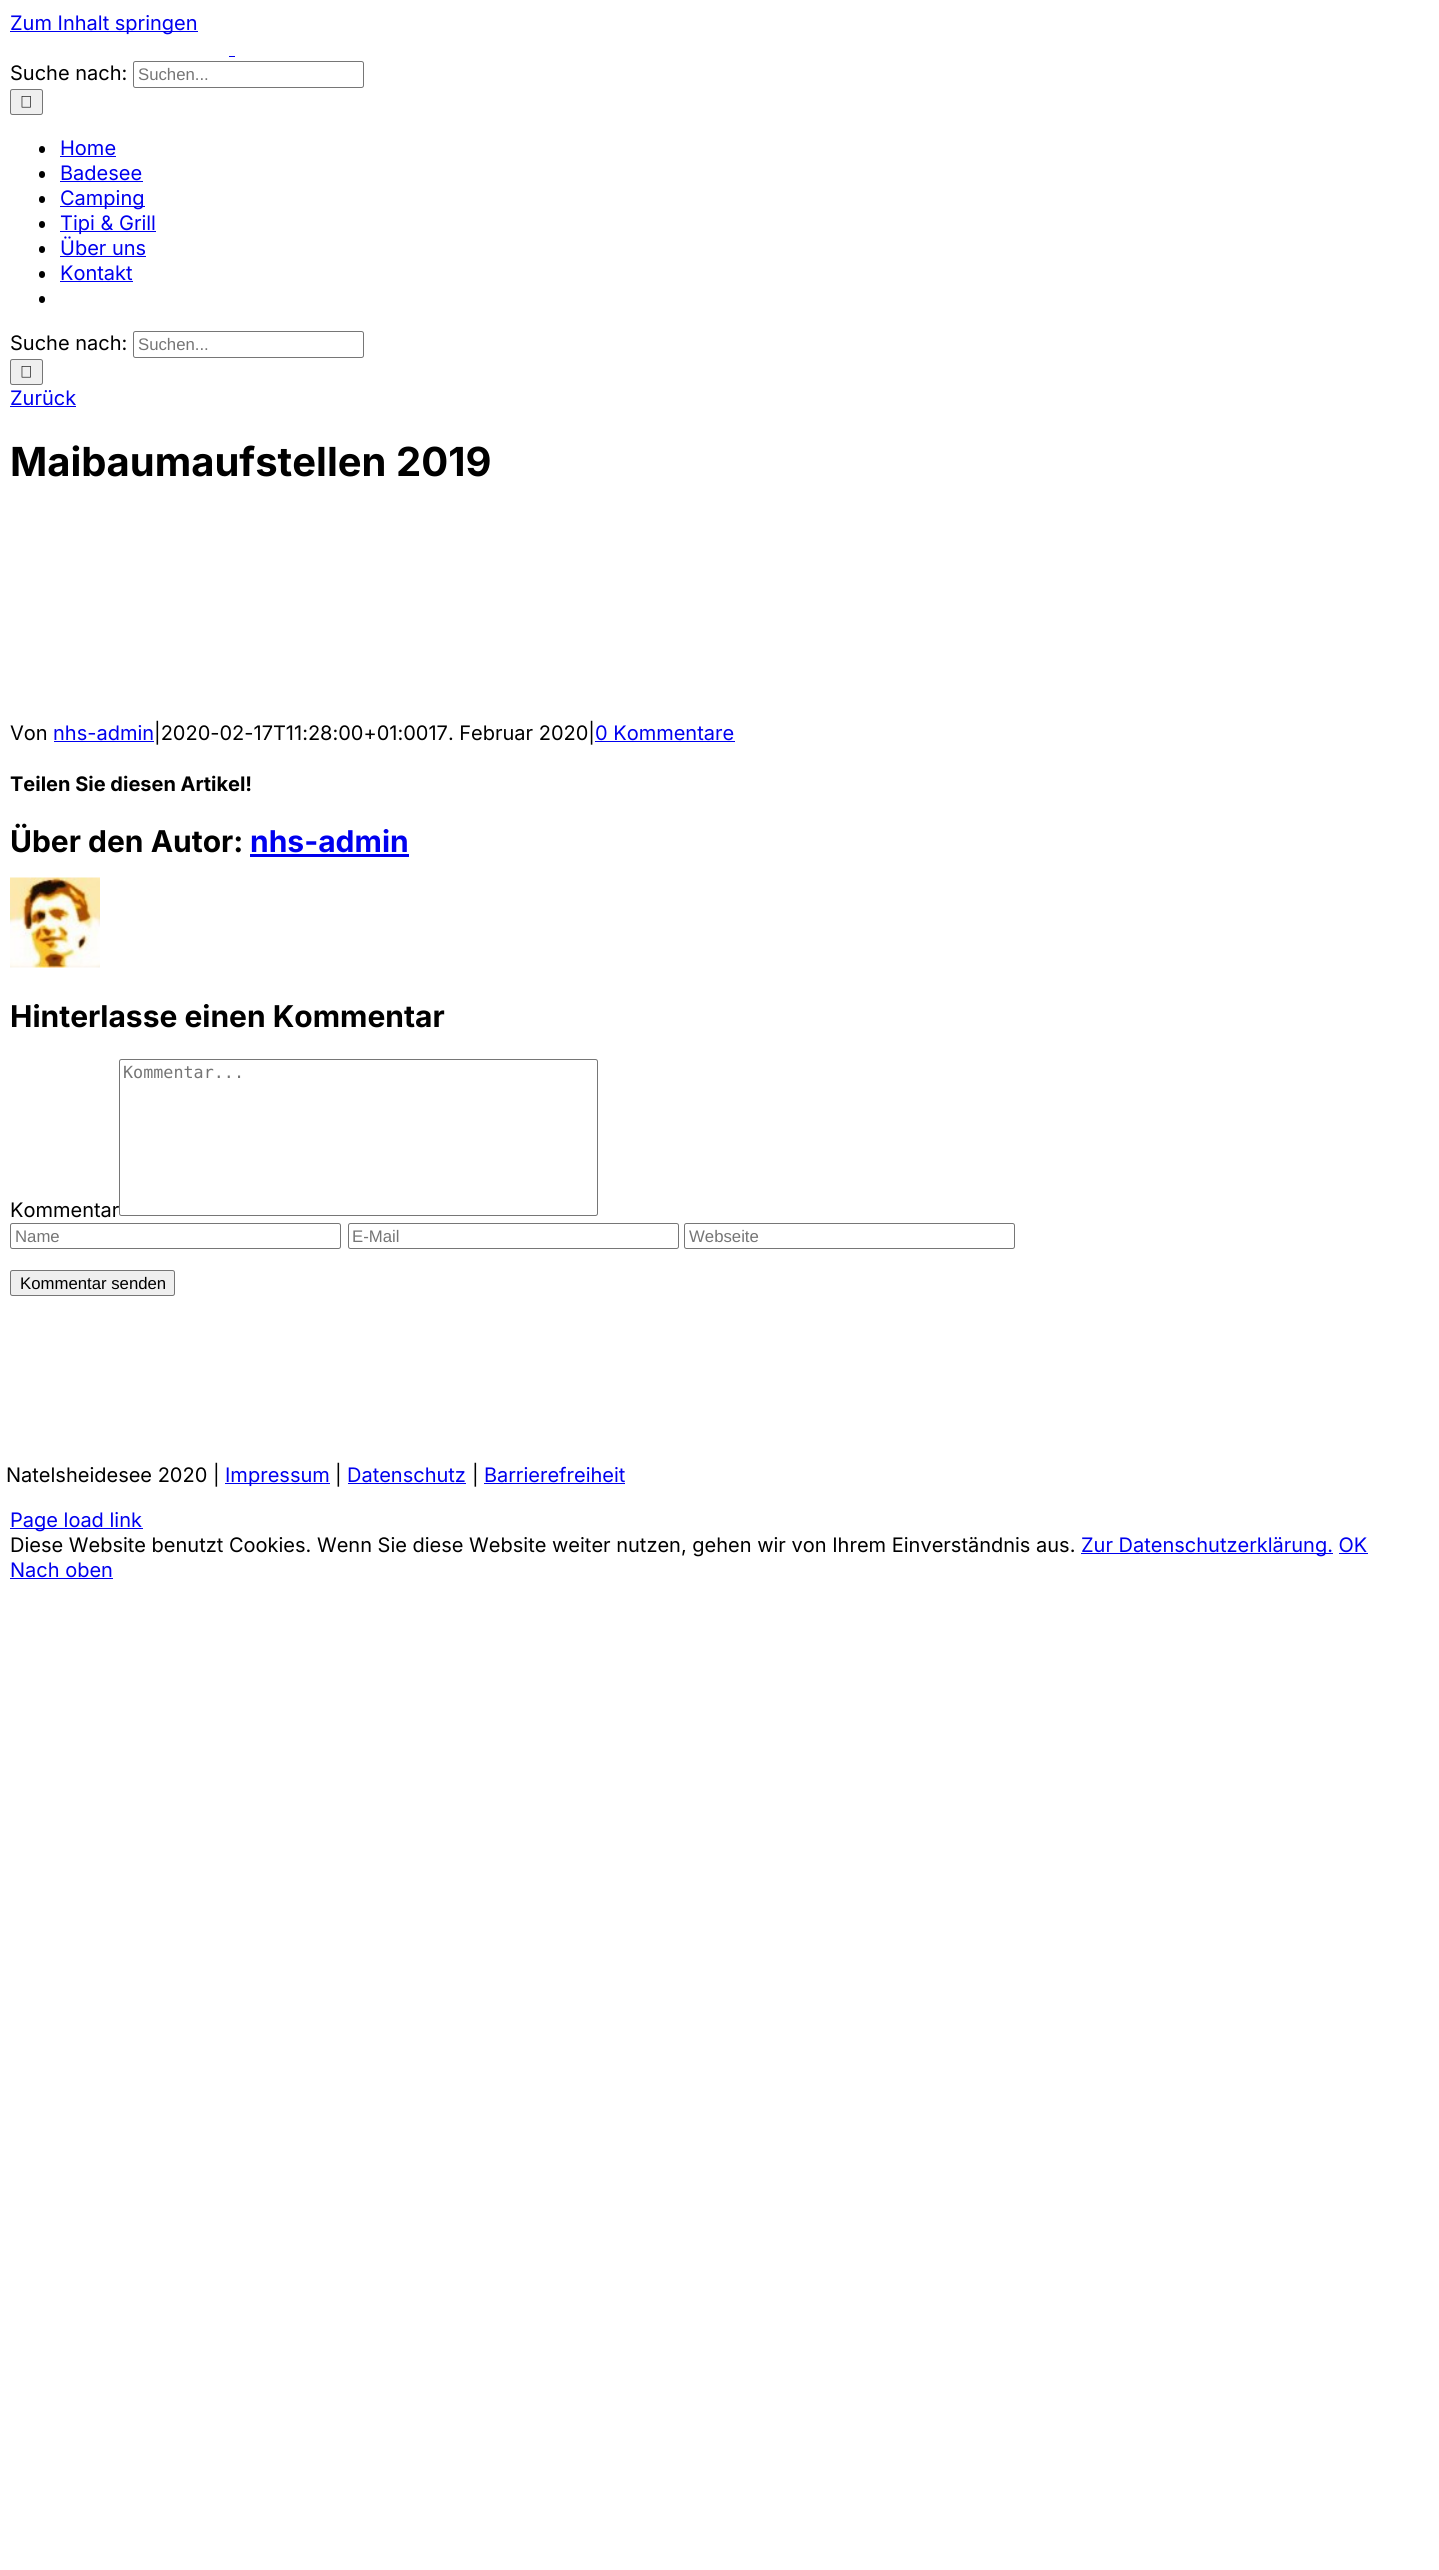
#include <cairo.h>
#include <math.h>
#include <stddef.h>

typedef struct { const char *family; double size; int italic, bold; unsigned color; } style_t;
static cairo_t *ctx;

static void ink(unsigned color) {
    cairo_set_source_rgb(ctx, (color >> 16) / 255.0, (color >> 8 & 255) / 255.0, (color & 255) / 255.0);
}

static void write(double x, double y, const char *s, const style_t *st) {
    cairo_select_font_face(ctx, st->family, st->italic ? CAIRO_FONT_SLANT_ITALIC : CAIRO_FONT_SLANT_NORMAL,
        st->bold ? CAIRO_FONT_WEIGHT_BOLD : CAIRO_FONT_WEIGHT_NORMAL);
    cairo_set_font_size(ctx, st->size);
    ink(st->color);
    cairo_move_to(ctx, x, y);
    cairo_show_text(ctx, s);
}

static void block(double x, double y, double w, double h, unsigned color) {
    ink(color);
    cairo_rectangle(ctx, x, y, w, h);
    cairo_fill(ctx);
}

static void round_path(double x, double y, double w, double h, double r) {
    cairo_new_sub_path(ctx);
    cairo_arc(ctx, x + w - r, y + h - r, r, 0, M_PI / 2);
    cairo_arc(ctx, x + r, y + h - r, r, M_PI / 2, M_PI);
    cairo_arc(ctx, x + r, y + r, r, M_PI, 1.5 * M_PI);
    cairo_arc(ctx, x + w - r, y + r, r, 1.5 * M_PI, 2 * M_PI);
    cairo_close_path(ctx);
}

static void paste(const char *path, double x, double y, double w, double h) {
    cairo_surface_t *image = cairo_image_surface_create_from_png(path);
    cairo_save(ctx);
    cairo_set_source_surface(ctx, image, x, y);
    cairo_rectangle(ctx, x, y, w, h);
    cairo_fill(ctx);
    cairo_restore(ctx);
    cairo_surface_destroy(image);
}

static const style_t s1 = {"Inter", 20, 0, 0, 0x0000ee};
static const style_t s2 = {"Inter", 20, 0, 0, 0x000000};
static const style_t s3 = {"Liberation Sans", 16.75, 0, 0, 0x757575};
static const style_t s4 = {"Inter", 40, 0, 1, 0x000000};
static const style_t s5 = {"Inter", 20, 0, 1, 0x000000};
static const style_t s6 = {"Inter", 30, 0, 1, 0x000000};
static const style_t s7 = {"Inter", 30, 0, 1, 0x0000ee};
static const style_t s8 = {"DejaVu Sans Mono", 16.75, 0, 0, 0x757575};
static const style_t s9 = {"Liberation Sans", 16.75, 0, 0, 0x000000};

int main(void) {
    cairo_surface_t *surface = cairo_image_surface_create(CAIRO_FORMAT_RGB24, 1439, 2570);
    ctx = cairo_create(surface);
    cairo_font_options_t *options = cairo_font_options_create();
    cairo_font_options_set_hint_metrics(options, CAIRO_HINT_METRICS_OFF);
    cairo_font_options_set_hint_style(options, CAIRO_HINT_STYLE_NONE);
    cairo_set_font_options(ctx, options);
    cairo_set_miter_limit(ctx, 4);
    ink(0xffffff);
    cairo_paint(ctx);
    block(10, 31, 188, 1, 0x0000ee);
    write(10, 30, "Zum Inhalt springen", &s1);
    block(229, 56, 6, 1, 0x0000ee);
    write(10, 80, "Suche nach:", &s2);
    round_path(133.5, 61.5, 230, 26, 2);
    ink(0x767676);
    cairo_set_line_width(ctx, 1);
    cairo_stroke(ctx);
    write(138, 80, "Suchen...", &s3);
    ink(0xefefef);
    round_path(10.5, 89.5, 32, 25, 2);
    cairo_fill_preserve(ctx);
    ink(0x767676);
    cairo_stroke(ctx);
    paste("pic1.png", 21, 96, 10, 12);
    ink(0x000000);
    round_path(39, 146, 6, 7, 3);
    cairo_fill(ctx);
    write(60, 155, "Home", &s1);
    block(60, 156, 56, 1, 0x0000ee);
    ink(0x000000);
    round_path(39, 171, 6, 7, 3);
    cairo_fill(ctx);
    write(60, 180, "Badesee", &s1);
    block(60, 181, 83, 1, 0x0000ee);
    ink(0x000000);
    round_path(39, 196, 6, 7, 3);
    cairo_fill(ctx);
    block(60, 206, 85, 1, 0x0000ee);
    write(60, 205, "Camping", &s1);
    ink(0x000000);
    round_path(39, 221, 6, 7, 3);
    cairo_fill(ctx);
    block(60, 231, 96, 1, 0x0000ee);
    write(60, 230, "Tipi & Grill", &s1);
    ink(0x000000);
    round_path(39, 246, 6, 7, 3);
    cairo_fill(ctx);
    write(60, 255, "Über uns", &s1);
    block(60, 256, 86, 1, 0x0000ee);
    ink(0x000000);
    round_path(39, 271, 6, 7, 3);
    cairo_fill(ctx);
    write(60, 280, "Kontakt", &s1);
    block(60, 281, 73, 1, 0x0000ee);
    ink(0x000000);
    round_path(39, 296, 6, 7, 3);
    cairo_fill(ctx);
    write(10, 350, "Suche nach:", &s2);
    round_path(133.5, 331.5, 230, 26, 2);
    ink(0x767676);
    cairo_stroke(ctx);
    write(138, 350, "Suchen...", &s3);
    ink(0xefefef);
    round_path(10.5, 359.5, 32, 25, 2);
    cairo_fill_preserve(ctx);
    ink(0x767676);
    cairo_stroke(ctx);
    paste("pic1.png", 21, 366, 10, 12);
    write(10, 405, "Zurück", &s1);
    block(10, 406, 66, 1, 0x0000ee);
    write(10, 476, "Maibaumaufstellen 2019", &s4);
    write(10, 740, "Von", &s2);
    write(53, 740, "nhs-admin", &s1);
    block(54, 741, 100, 1, 0x0000ee);
    write(154, 740, "|2020-02-17T11:28:00+01:0017. Februar 2020|", &s2);
    write(595, 740, "0 Kommentare", &s1);
    block(595, 741, 140, 1, 0x0000ee);
    write(10, 791, "Teilen Sie diesen Artikel!", &s5);
    write(10, 852, "Über den Autor:", &s6);
    write(250, 852, "nhs-admin", &s7);
    block(250, 854, 159, 3, 0x0000ee);
    paste("pic2.png", 10, 877, 90, 91);
    write(10, 1027, "Hinterlasse einen Kommentar", &s6);
    round_path(119.5, 1059.5, 478, 156, 2);
    ink(0x767676);
    cairo_stroke(ctx);
    write(123, 1078, "Kommentar...", &s8);
    write(10, 1217, "Kommentar", &s2);
    round_path(10.5, 1223.5, 330, 25, 2);
    ink(0x767676);
    cairo_stroke(ctx);
    write(15, 1242, "Name", &s3);
    round_path(348.5, 1223.5, 330, 25, 2);
    ink(0x767676);
    cairo_stroke(ctx);
    write(352, 1242, "E-Mail", &s3);
    round_path(684.5, 1223.5, 330, 25, 2);
    ink(0x767676);
    cairo_stroke(ctx);
    write(689, 1242, "Webseite", &s3);
    ink(0xefefef);
    round_path(10.5, 1270.5, 164, 25, 2);
    cairo_fill_preserve(ctx);
    ink(0x767676);
    cairo_stroke(ctx);
    write(20, 1289, "Kommentar senden", &s9);
    write(6, 1482, "Natelsheidesee 2020 |", &s2);
    block(225, 1483, 105, 1, 0x0000ee);
    write(225, 1482, "Impressum", &s1);
    write(335, 1482, "|", &s2);
    write(347, 1482, "Datenschutz", &s1);
    block(348, 1483, 118, 1, 0x0000ee);
    write(472, 1482, "|", &s2);
    write(484, 1482, "Barrierefreiheit", &s1);
    block(484, 1483, 141, 1, 0x0000ee);
    block(10, 1528, 133, 1, 0x0000ee);
    write(10, 1527, "Page load link", &s1);
    write(10, 1552, "Diese Website benutzt Cookies. Wenn Sie diese Website weiter nutzen, gehen wir von Ihrem Einverständnis aus.", &s2);
    block(1081, 1553, 252, 1, 0x0000ee);
    write(1081, 1552, "Zur Datenschutzerklärung. OK", &s1);
    block(1339, 1553, 29, 1, 0x0000ee);
    write(10, 1577, "Nach oben", &s1);
    block(10, 1578, 103, 1, 0x0000ee);
    cairo_surface_write_to_png(surface, "screenshot.png");
    cairo_font_options_destroy(options);
    cairo_destroy(ctx);
    cairo_surface_destroy(surface);
    return 0;
}
